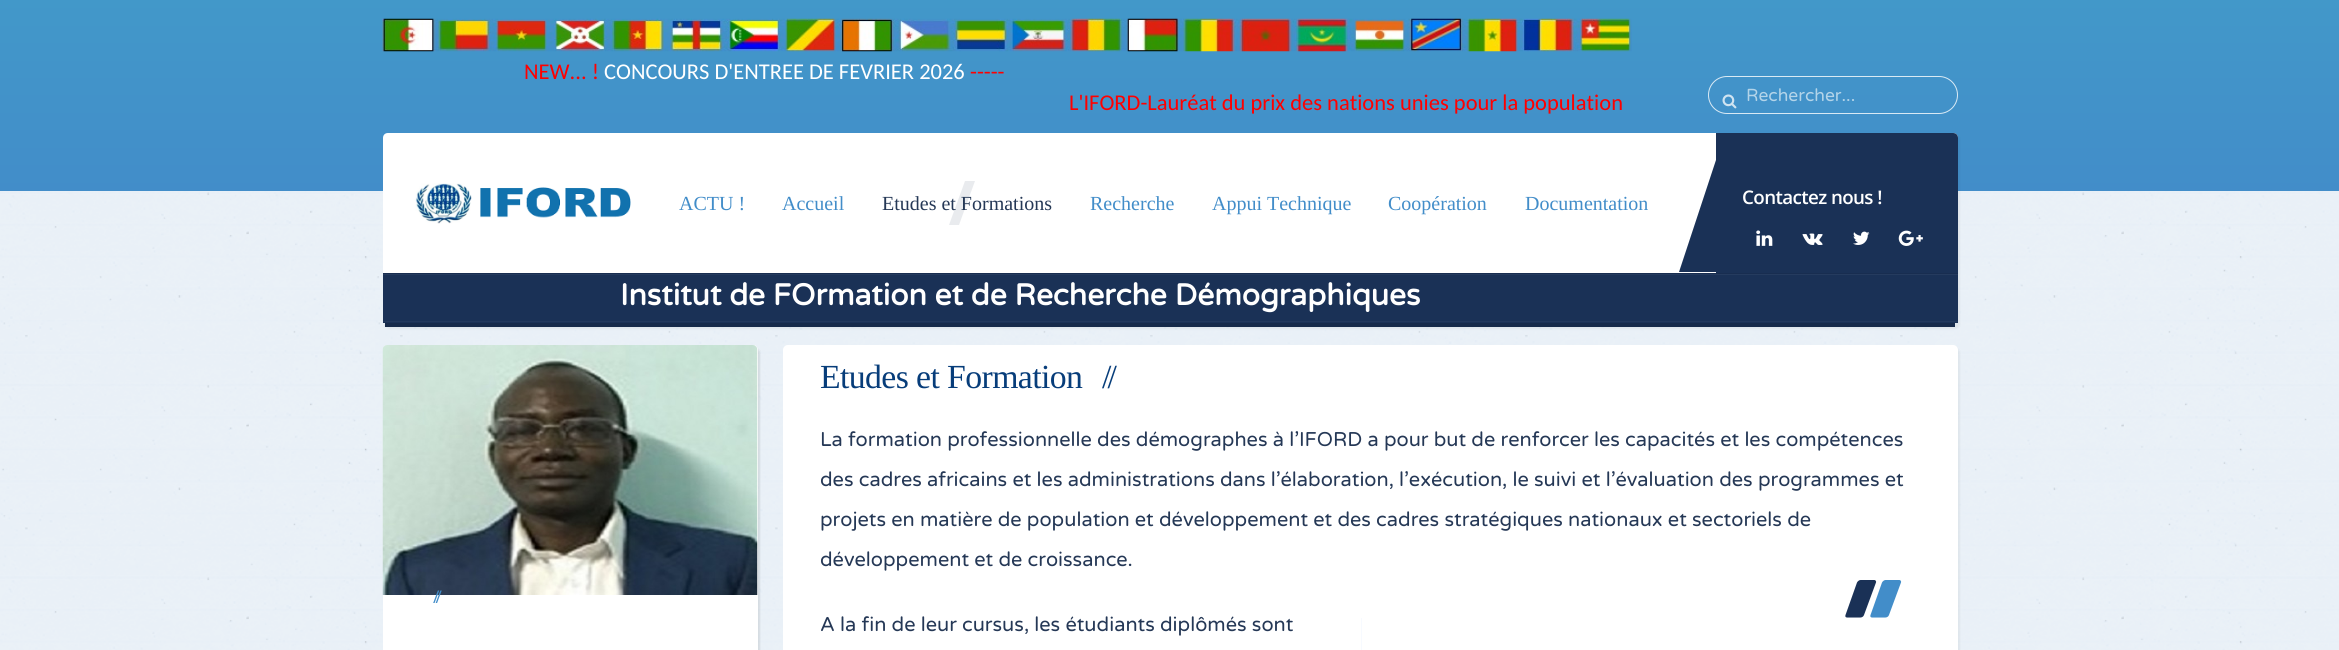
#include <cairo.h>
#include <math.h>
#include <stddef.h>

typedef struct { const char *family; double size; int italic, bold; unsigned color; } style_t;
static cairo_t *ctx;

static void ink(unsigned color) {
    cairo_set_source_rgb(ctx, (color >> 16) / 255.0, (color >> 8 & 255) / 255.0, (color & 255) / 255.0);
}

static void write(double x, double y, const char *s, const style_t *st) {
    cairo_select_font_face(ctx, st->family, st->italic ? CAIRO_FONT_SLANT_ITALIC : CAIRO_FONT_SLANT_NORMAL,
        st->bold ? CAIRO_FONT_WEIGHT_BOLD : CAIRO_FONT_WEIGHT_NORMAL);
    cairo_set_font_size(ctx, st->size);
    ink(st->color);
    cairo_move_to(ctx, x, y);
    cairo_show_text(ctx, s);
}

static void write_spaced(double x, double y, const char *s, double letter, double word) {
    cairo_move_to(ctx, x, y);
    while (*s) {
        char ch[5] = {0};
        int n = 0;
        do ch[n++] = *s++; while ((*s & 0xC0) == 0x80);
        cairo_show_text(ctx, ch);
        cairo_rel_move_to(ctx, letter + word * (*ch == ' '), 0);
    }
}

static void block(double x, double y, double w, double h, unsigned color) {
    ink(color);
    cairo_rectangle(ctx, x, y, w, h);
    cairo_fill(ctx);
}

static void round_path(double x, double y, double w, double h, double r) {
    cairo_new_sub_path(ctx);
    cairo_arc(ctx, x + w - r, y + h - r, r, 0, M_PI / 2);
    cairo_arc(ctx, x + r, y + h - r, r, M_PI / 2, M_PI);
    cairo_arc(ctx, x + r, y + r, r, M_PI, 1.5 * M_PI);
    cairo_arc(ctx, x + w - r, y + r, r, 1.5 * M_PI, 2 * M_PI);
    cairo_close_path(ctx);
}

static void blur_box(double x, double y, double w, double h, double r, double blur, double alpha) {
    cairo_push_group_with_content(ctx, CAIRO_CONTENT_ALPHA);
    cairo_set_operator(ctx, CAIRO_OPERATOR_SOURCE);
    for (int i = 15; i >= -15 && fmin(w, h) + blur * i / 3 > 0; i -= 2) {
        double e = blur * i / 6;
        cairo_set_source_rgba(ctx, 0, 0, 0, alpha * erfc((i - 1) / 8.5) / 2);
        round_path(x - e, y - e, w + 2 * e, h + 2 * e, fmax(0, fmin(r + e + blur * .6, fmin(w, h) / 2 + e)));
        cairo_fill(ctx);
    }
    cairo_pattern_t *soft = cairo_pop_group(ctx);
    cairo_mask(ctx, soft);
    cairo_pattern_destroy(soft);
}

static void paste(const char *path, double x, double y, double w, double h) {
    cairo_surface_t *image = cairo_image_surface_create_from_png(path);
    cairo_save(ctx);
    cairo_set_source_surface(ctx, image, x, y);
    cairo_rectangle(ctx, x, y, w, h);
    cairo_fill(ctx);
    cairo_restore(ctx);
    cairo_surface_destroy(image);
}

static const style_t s1 = {"Carlito", 22.5, 0, 0, 0xff0000};
static const style_t s2 = {"Carlito", 22.5, 0, 0, 0xffffff};
static const style_t s3 = {"Varela Round", 17.5, 0, 0, 0xb3d4e9};
static const style_t s4 = {"Liberation Serif", 20, 0, 0, 0x428dc9};
static const style_t s5 = {"Liberation Serif", 20, 0, 0, 0x253856};
static const style_t s6 = {"Varela Round", 30, 0, 1, 0xffffff};
static const style_t s7 = {"Varela Round", 20, 0, 0, 0x253856};

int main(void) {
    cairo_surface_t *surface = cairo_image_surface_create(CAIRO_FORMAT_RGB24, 2339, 650);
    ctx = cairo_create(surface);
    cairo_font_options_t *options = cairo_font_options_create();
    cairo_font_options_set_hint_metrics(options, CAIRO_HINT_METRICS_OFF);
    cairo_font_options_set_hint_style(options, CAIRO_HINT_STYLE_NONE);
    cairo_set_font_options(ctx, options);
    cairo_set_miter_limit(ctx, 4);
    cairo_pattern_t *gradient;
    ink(0xe3ecf5);
    cairo_paint(ctx);
    paste("pic1.png", 0, 191, 2339, 459);
    gradient = cairo_pattern_create_linear(1170, 0, 1170, 191);
    cairo_pattern_add_color_stop_rgba(gradient, 0, 0.259, 0.596, 0.788, 1);
    cairo_pattern_add_color_stop_rgba(gradient, 1, 0.259, 0.553, 0.788, 1);
    cairo_set_source(ctx, gradient);
    cairo_pattern_destroy(gradient);
    cairo_rectangle(ctx, 0, 0, 2339, 191);
    cairo_fill(ctx);
    paste("pic2.png", 382, 18, 1250, 34);
    write(524, 79, "NEW... !", &s1);
    write(604, 79, "CONCOURS D'ENTREE DE FEVRIER 2026", &s2);
    write(970, 79, "-----", &s1);
    write(1069, 110, "L'IFORD-Lauréat du prix des nations unies pour la population", &s1);
    round_path(1708.5, 76.5, 249, 37, 18.5);
    cairo_set_source_rgba(ctx, 1, 1, 1, 0.8);
    cairo_set_line_width(ctx, 1);
    cairo_stroke(ctx);
    paste("pic3.png", 1722, 94, 15, 15);
    write(1746, 101, "Rechercher...", &s3);
    ink(0x000000);
    blur_box(385, 135, 1575, 194, 5, 1, 0.05);
    block(385, 323, 1570, 4, 0x162a4a);
    ink(0xffffff);
    cairo_new_path(ctx);
    cairo_move_to(ctx, 388, 133);
    cairo_line_to(ctx, 1953, 133);
    cairo_curve_to(ctx, 1956, 133, 1958, 135, 1958, 138);
    cairo_line_to(ctx, 1958, 273);
    cairo_line_to(ctx, 383, 273);
    cairo_line_to(ctx, 383, 138);
    cairo_curve_to(ctx, 383, 135, 385, 133, 388, 133);
    cairo_close_path(ctx);
    cairo_fill(ctx);
    paste("pic4.png", 415, 183, 216, 41);
    write(679, 210, "ACTU !", &s4);
    write(782, 210, "Accueil", &s4);
    cairo_set_source_rgba(ctx, 0.145, 0.22, 0.337, 0.1);
    cairo_new_path(ctx);
    cairo_move_to(ctx, 965, 181);
    cairo_line_to(ctx, 975, 181);
    cairo_line_to(ctx, 959, 225);
    cairo_line_to(ctx, 949, 225);
    cairo_close_path(ctx);
    cairo_fill(ctx);
    write(882, 210, "Etudes et Formations", &s5);
    write(1090, 210, "Recherche", &s4);
    write(1212, 210, "Appui Technique", &s4);
    write(1388, 210, "Coopération", &s4);
    write(1525, 210, "Documentation", &s4);
    ink(0x1a3156);
    cairo_new_path(ctx);
    cairo_move_to(ctx, 1716, 133);
    cairo_line_to(ctx, 1953, 133);
    cairo_curve_to(ctx, 1956, 133, 1958, 135, 1958, 138);
    cairo_line_to(ctx, 1958, 273);
    cairo_line_to(ctx, 1716, 273);
    cairo_close_path(ctx);
    cairo_fill(ctx);
    cairo_new_path(ctx);
    cairo_move_to(ctx, 1716, 272);
    cairo_line_to(ctx, 1679, 272);
    cairo_line_to(ctx, 1716, 160);
    cairo_close_path(ctx);
    cairo_fill(ctx);
    cairo_select_font_face(ctx, "Open Sans SemiBold", CAIRO_FONT_SLANT_NORMAL, CAIRO_FONT_WEIGHT_NORMAL);
    cairo_set_font_size(ctx, 18.75);
    ink(0xffffff);
    write_spaced(1742, 204, "Contactez nous !", -0.6, 0);
    paste("pic5.png", 1756, 230, 17, 16);
    paste("pic6.png", 1802, 233, 21, 12);
    paste("pic7.png", 1853, 231, 17, 14);
    paste("pic8.png", 1898, 230, 25, 16);
    block(383, 275, 1575, 48, 0x1a3156);
    block(383, 321, 1575, 1, 0x22385c);
    block(383, 274, 1575, 1, 0x253b5e);
    block(383, 273, 1575, 1, 0x182d50);
    write(620, 305, "Institut de FOrmation et de Recherche Démographiques", &s6);
    ink(0x000000);
    blur_box(385, 348, 375, 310, 5, 1, 0.05);
    blur_box(385, 348, 375, 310, 5, 1, 0.05);
    ink(0xffffff);
    round_path(383, 345, 375, 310, 5);
    cairo_fill(ctx);
    paste("pic9.png", 382, 345, 376, 250);
    cairo_select_font_face(ctx, "Open Sans", CAIRO_FONT_SLANT_NORMAL, CAIRO_FONT_WEIGHT_NORMAL);
    cairo_set_font_size(ctx, 17.5);
    ink(0x428dc9);
    write_spaced(433, 603, "//", -4, 0);
    ink(0x000000);
    blur_box(785, 348, 1175, 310, 5, 1, 0.05);
    ink(0xffffff);
    round_path(783, 345, 1175, 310, 5);
    cairo_fill(ctx);
    cairo_select_font_face(ctx, "Liberation Serif", CAIRO_FONT_SLANT_NORMAL, CAIRO_FONT_WEIGHT_NORMAL);
    cairo_set_font_size(ctx, 33.75);
    ink(0x073d7a);
    write_spaced(820, 388, "Etudes et Formation", -0.6, 0);
    write_spaced(1102, 388, "//", -4, 0);
    write(820, 446, "La formation professionnelle des démographes à l’IFORD a pour but de renforcer les capacités et les compétences", &s7);
    write(820, 486, "des cadres africains et les administrations dans l’élaboration, l’exécution, le suivi et l’évaluation des programmes et", &s7);
    write(820, 526, "projets en matière de population et développement et des cadres stratégiques nationaux et sectoriels de", &s7);
    write(820, 566, "développement et de croissance.", &s7);
    write(820, 631, "A la fin de leur cursus, les étudiants diplômés sont", &s7);
    block(1361, 618, 1, 32, 0xf7faff);
    ink(0x428dc9);
    cairo_new_path(ctx);
    cairo_move_to(ctx, 1885.5, 580);
    cairo_line_to(ctx, 1899.5, 580);
    cairo_curve_to(ctx, 1900.5, 580, 1901.5, 581.5, 1901, 582.5);
    cairo_line_to(ctx, 1889, 615);
    cairo_curve_to(ctx, 1888.5, 616.5, 1887, 617.5, 1885.5, 617.5);
    cairo_line_to(ctx, 1872, 617.5);
    cairo_curve_to(ctx, 1870.5, 617.5, 1870, 616.5, 1870.5, 615);
    cairo_line_to(ctx, 1882, 582.5);
    cairo_curve_to(ctx, 1882.5, 581.5, 1884, 580, 1885.5, 580);
    cairo_close_path(ctx);
    cairo_fill(ctx);
    ink(0x1a3156);
    cairo_new_path(ctx);
    cairo_move_to(ctx, 1860.5, 580);
    cairo_line_to(ctx, 1874.5, 580);
    cairo_curve_to(ctx, 1875.5, 580, 1876.5, 581.5, 1876, 582.5);
    cairo_line_to(ctx, 1864, 615);
    cairo_curve_to(ctx, 1863.5, 616.5, 1862, 617.5, 1860.5, 617.5);
    cairo_line_to(ctx, 1847, 617.5);
    cairo_curve_to(ctx, 1845.5, 617.5, 1845, 616.5, 1845.5, 615);
    cairo_line_to(ctx, 1857, 582.5);
    cairo_curve_to(ctx, 1857.5, 581.5, 1859, 580, 1860.5, 580);
    cairo_close_path(ctx);
    cairo_fill(ctx);
    cairo_surface_write_to_png(surface, "screenshot.png");
    cairo_font_options_destroy(options);
    cairo_destroy(ctx);
    cairo_surface_destroy(surface);
    return 0;
}
